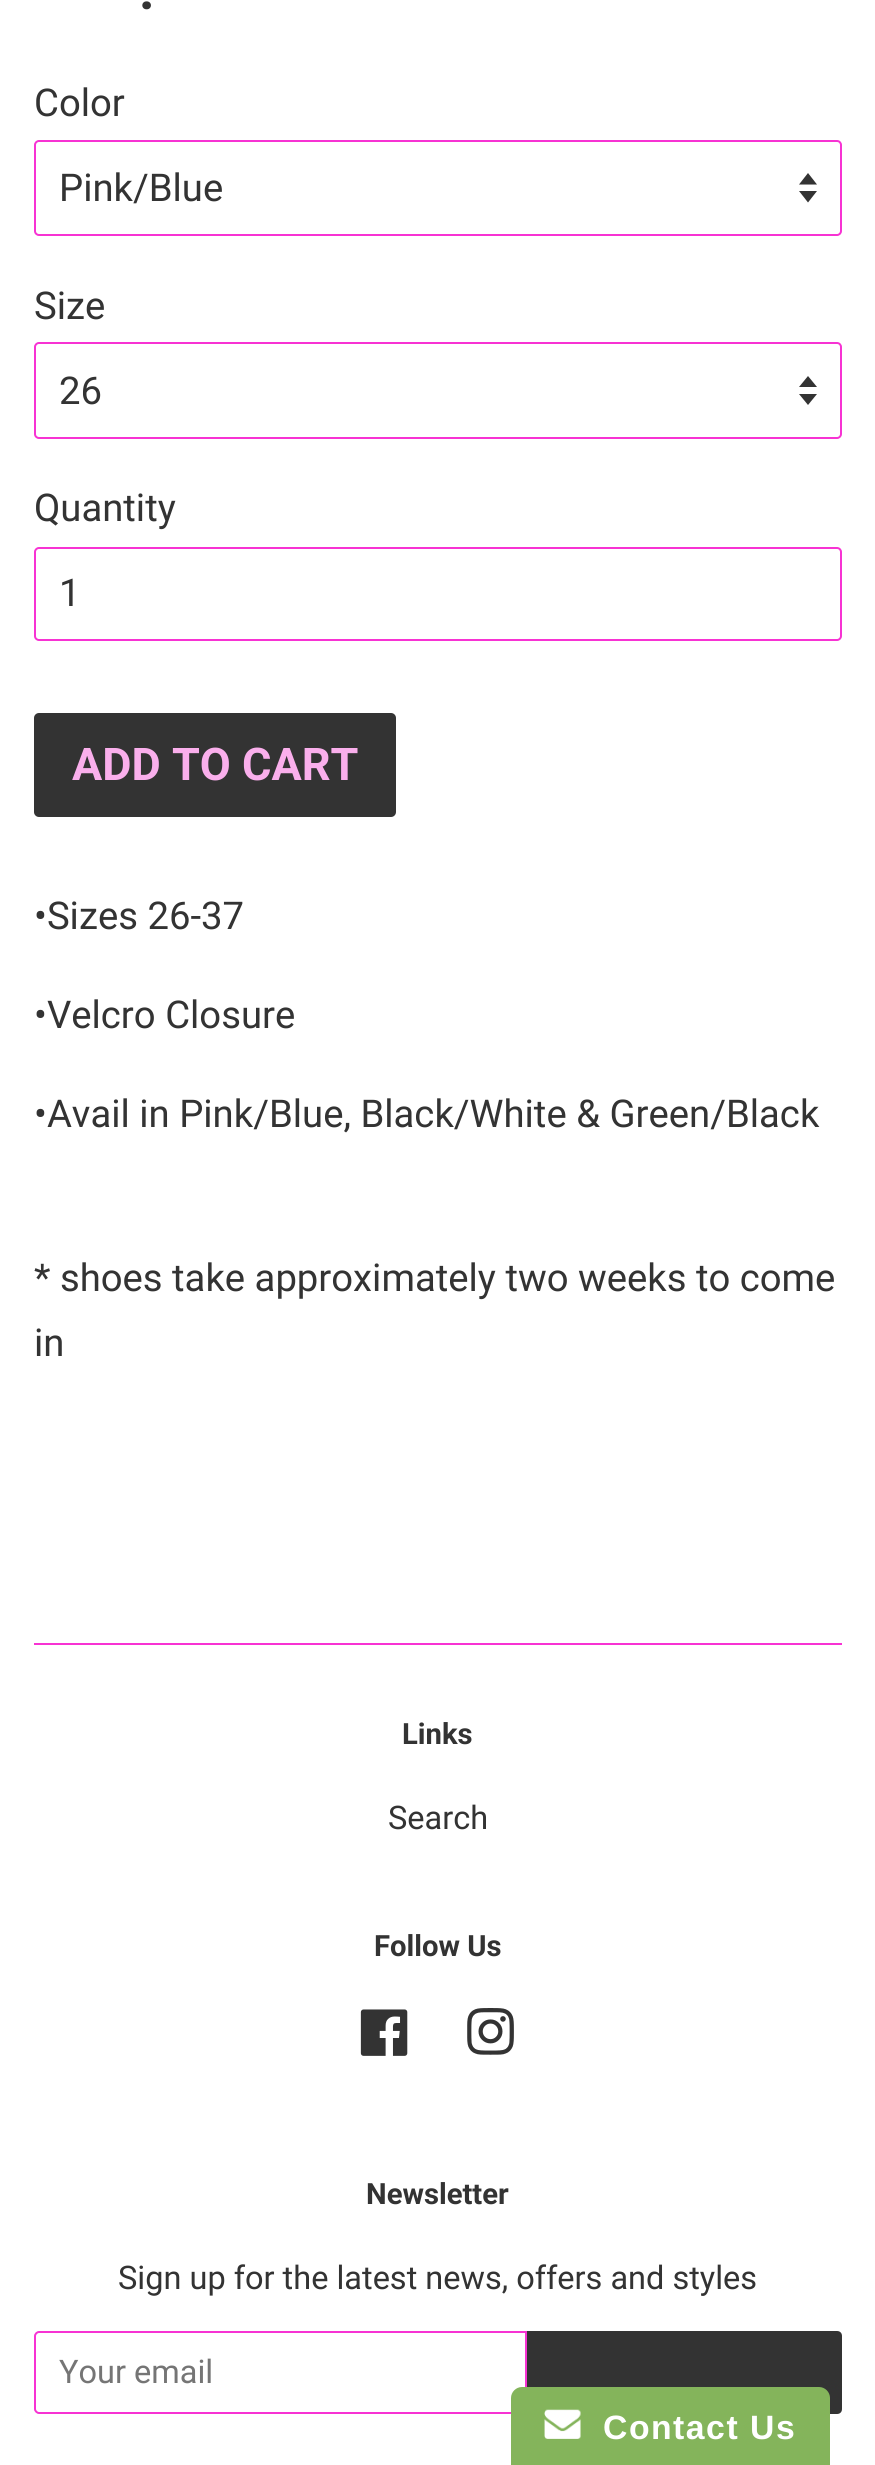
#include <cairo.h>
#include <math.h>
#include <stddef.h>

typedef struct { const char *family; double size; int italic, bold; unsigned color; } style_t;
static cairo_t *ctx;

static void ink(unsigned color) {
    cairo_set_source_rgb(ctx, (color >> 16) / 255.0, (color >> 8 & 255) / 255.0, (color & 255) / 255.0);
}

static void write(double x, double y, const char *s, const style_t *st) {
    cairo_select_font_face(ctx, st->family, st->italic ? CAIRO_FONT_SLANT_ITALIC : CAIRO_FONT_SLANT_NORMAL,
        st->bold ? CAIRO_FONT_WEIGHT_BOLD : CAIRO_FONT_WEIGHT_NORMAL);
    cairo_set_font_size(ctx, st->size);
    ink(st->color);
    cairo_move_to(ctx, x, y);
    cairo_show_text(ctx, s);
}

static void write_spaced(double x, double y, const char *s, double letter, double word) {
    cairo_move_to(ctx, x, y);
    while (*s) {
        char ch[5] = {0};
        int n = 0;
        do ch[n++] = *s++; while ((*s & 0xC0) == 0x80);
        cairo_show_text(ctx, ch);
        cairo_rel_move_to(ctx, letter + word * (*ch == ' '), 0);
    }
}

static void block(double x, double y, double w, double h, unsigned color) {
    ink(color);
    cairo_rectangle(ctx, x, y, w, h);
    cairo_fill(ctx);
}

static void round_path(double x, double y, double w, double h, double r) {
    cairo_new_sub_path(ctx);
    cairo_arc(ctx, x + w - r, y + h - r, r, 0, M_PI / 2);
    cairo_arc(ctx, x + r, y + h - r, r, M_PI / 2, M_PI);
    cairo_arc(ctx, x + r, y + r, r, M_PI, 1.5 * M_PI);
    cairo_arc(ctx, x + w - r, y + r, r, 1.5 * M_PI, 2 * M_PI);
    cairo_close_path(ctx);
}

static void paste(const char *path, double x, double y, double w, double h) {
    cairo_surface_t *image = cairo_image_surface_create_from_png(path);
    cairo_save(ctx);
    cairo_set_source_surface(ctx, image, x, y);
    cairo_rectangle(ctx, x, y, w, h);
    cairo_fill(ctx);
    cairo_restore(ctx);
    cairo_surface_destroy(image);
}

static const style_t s1 = {"Roboto", 54, 0, 1, 0x333333};
static const style_t s2 = {"Roboto", 38.25, 0, 0, 0x333333};
static const style_t s3 = {"Roboto", 45, 0, 1, 0xfaafec};
static const style_t s4 = {"Roboto", 29.25, 0, 1, 0x333333};
static const style_t s5 = {"Roboto", 32.5, 0, 0, 0x333333};
static const style_t s6 = {"Roboto", 32.5, 0, 0, 0x757575};

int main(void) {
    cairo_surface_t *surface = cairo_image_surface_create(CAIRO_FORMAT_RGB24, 875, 2465);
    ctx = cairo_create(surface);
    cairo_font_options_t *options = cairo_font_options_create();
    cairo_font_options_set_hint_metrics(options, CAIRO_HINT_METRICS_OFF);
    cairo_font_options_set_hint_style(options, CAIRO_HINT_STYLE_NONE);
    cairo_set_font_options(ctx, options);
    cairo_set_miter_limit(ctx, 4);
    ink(0xffffff);
    cairo_paint(ctx);
    write(139, 9, ".", &s1);
    write(34, 116, "Color", &s2);
    cairo_new_path(ctx);
    cairo_move_to(ctx, 799, 191);
    cairo_line_to(ctx, 808, 202.5);
    cairo_line_to(ctx, 817, 191);
    cairo_close_path(ctx);
    cairo_move_to(ctx, 808, 173);
    cairo_line_to(ctx, 799, 184.5);
    cairo_line_to(ctx, 817, 184.5);
    cairo_close_path(ctx);
    cairo_fill(ctx);
    round_path(35, 141, 806, 94, 4);
    ink(0xf733d3);
    cairo_stroke(ctx);
    write(59, 201, "Pink/Blue", &s2);
    write(34, 319, "Size", &s2);
    cairo_new_path(ctx);
    cairo_move_to(ctx, 799, 394);
    cairo_line_to(ctx, 808, 405);
    cairo_line_to(ctx, 817, 394);
    cairo_close_path(ctx);
    cairo_move_to(ctx, 808, 376);
    cairo_line_to(ctx, 799, 387);
    cairo_line_to(ctx, 817, 387);
    cairo_close_path(ctx);
    cairo_fill(ctx);
    round_path(35, 343, 806, 95, 4);
    ink(0xf733d3);
    cairo_stroke(ctx);
    write(59, 404, "26", &s2);
    write(34, 521, "Quantity", &s2);
    round_path(35, 548, 806, 92, 4);
    ink(0xf733d3);
    cairo_stroke(ctx);
    write(59, 606, "1", &s2);
    round_path(34, 713, 362, 104, 5);
    cairo_fill(ctx);
    write(72, 780, "ADD TO CART", &s3);
    write(34, 929, "•Sizes 26-37", &s2);
    write(34, 1028, "•Velcro Closure", &s2);
    write(34, 1127, "•Avail in Pink/Blue, Black/White & Green/Black", &s2);
    write(34, 1291, "* shoes take approximately two weeks to come", &s2);
    write(34, 1356, "in", &s2);
    block(34, 1643, 808, 2, 0xf733d3);
    write(402, 1744, "Links", &s4);
    write(388, 1829, "Search", &s5);
    write(374, 1956, "Follow Us", &s4);
    paste("pic1.png", 360, 2009, 48, 47);
    paste("pic2.png", 467, 2008, 47, 47);
    write(366, 2204, "Newsletter", &s4);
    write(118, 2289, "Sign up for the latest news, offers and styles", &s5);
    cairo_new_path(ctx);
    cairo_move_to(ctx, 39, 2332);
    cairo_line_to(ctx, 526, 2332);
    cairo_line_to(ctx, 526, 2413);
    cairo_line_to(ctx, 39, 2413);
    cairo_curve_to(ctx, 37, 2413, 35, 2411, 35, 2409);
    cairo_line_to(ctx, 35, 2336);
    cairo_curve_to(ctx, 35, 2334, 37, 2332, 39, 2332);
    cairo_close_path(ctx);
    ink(0xf733d3);
    cairo_stroke(ctx);
    write(59, 2383, "Your email", &s6);
    ink(0x333333);
    cairo_new_path(ctx);
    cairo_move_to(ctx, 527, 2331);
    cairo_line_to(ctx, 837, 2331);
    cairo_curve_to(ctx, 840, 2331, 842, 2333, 842, 2336);
    cairo_line_to(ctx, 842, 2409);
    cairo_curve_to(ctx, 842, 2412, 840, 2414, 837, 2414);
    cairo_line_to(ctx, 527, 2414);
    cairo_close_path(ctx);
    cairo_fill(ctx);
    ink(0x84b45b);
    cairo_new_path(ctx);
    cairo_move_to(ctx, 522, 2387);
    cairo_line_to(ctx, 819, 2387);
    cairo_curve_to(ctx, 825, 2387, 830, 2392, 830, 2398);
    cairo_line_to(ctx, 830, 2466);
    cairo_line_to(ctx, 511, 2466);
    cairo_line_to(ctx, 511, 2398);
    cairo_curve_to(ctx, 511, 2392, 516, 2387, 522, 2387);
    cairo_close_path(ctx);
    cairo_fill(ctx);
    paste("pic3.png", 544, 2409, 37, 30);
    cairo_select_font_face(ctx, "Liberation Sans", CAIRO_FONT_SLANT_NORMAL, CAIRO_FONT_WEIGHT_BOLD);
    cairo_set_font_size(ctx, 33.75);
    ink(0xffffff);
    write_spaced(603, 2439, "Contact Us", 1.5, 0);
    cairo_surface_write_to_png(surface, "screenshot.png");
    cairo_font_options_destroy(options);
    cairo_destroy(ctx);
    cairo_surface_destroy(surface);
    return 0;
}
